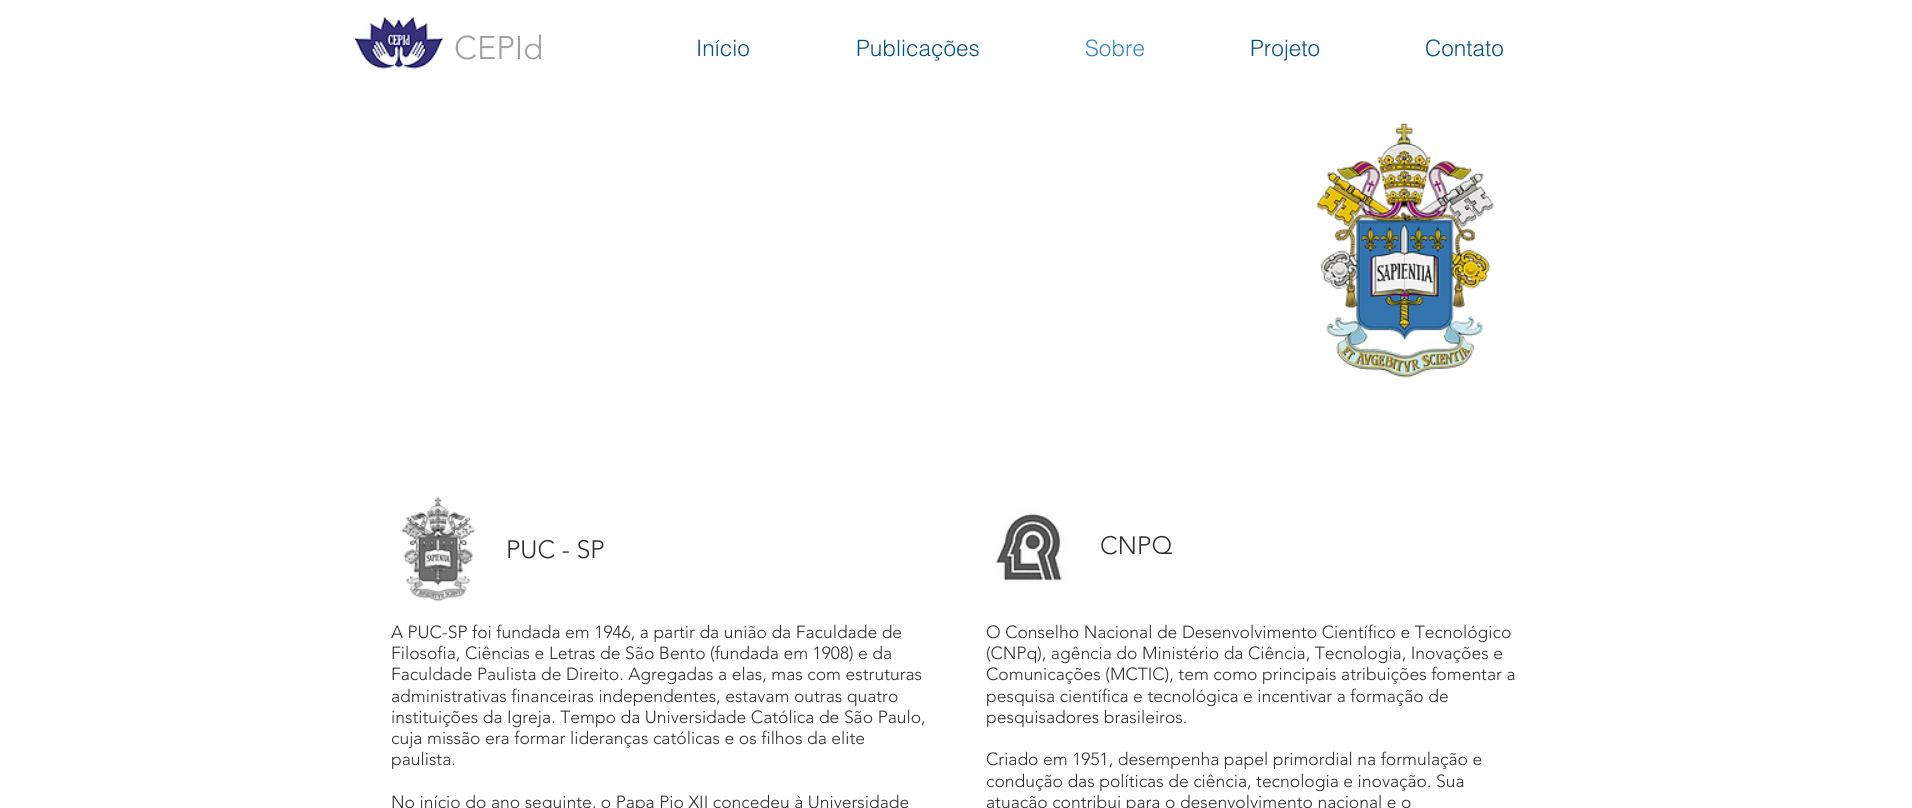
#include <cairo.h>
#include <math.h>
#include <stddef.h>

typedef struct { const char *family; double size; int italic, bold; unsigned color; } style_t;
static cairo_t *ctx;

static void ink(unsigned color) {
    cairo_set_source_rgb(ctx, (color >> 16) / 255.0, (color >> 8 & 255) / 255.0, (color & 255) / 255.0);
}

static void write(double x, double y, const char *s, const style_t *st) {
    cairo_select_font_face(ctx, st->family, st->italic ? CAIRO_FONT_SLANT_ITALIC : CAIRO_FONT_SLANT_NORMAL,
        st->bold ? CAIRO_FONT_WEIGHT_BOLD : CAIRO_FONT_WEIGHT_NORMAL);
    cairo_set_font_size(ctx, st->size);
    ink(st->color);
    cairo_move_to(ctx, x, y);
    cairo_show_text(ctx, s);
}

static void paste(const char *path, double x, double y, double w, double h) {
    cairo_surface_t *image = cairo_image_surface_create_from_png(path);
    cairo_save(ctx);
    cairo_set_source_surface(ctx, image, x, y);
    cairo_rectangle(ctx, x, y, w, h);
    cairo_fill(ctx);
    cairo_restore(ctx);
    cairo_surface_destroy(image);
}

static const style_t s1 = {"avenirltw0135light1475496 Light", 32.5, 0, 0, 0xa0a09f};
static const style_t s2 = {"helvetica Light", 22.5, 0, 0, 0x045184};
static const style_t s3 = {"helvetica Light", 22.5, 0, 0, 0x3588cc};
static const style_t s4 = {"avenirltw0135light1475496 Light", 25, 0, 0, 0x2f2e2e};
static const style_t s5 = {"avenirltw0135light1475496 Light", 17.5, 0, 0, 0x2f2e2e};

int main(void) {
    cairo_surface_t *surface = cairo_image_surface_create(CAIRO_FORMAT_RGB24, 1912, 808);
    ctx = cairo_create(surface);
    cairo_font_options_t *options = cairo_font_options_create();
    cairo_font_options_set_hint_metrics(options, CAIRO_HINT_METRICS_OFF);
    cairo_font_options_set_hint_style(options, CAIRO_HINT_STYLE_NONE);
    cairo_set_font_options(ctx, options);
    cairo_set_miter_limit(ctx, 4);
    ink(0xffffff);
    cairo_paint(ctx);
    paste("pic1.png", 353, 17, 91, 52);
    write(454, 59, "CEPId", &s1);
    write(696, 56, "Início", &s2);
    write(856, 56, "Publicações", &s2);
    write(1085, 56, "Sobre", &s3);
    write(1250, 56, "Projeto", &s2);
    write(1425, 56, "Contato", &s2);
    paste("pic2.png", 1317, 123, 177, 255);
    paste("pic3.png", 402, 497, 73, 105);
    write(506, 558, "PUC - SP", &s4);
    paste("pic4.png", 996, 511, 69, 73);
    write(1100, 554, "CNPQ", &s4);
    write(391, 638, "A PUC-SP foi fundada em 1946, a partir da união da Faculdade de", &s5);
    write(391, 659, "Filosofia, Ciências e Letras de São Bento (fundada em 1908) e da", &s5);
    write(391, 680, "Faculdade Paulista de Direito. Agregadas a elas, mas com estruturas", &s5);
    write(391, 702, "administrativas financeiras independentes, estavam outras quatro", &s5);
    write(391, 723, "instituições da Igreja. Tempo da Universidade Católica de São Paulo,", &s5);
    write(391, 744, "cuja missão era formar lideranças católicas e os filhos da elite", &s5);
    write(391, 765, "paulista.", &s5);
    write(391, 808, "No início do ano seguinte, o Papa Pio XII concedeu à Universidade", &s5);
    write(986, 638, "O Conselho Nacional de Desenvolvimento Científico e Tecnológico", &s5);
    write(986, 659, "(CNPq), agência do Ministério da Ciência, Tecnologia, Inovações e", &s5);
    write(986, 680, "Comunicações (MCTIC), tem como principais atribuições fomentar a", &s5);
    write(986, 702, "pesquisa científica e tecnológica e incentivar a formação de", &s5);
    write(986, 723, "pesquisadores brasileiros.", &s5);
    write(986, 765, "Criado em 1951, desempenha papel primordial na formulação e", &s5);
    write(986, 787, "condução das políticas de ciência, tecnologia e inovação. Sua", &s5);
    write(986, 808, "atuação contribui para o desenvolvimento nacional e o", &s5);
    cairo_surface_write_to_png(surface, "screenshot.png");
    cairo_font_options_destroy(options);
    cairo_destroy(ctx);
    cairo_surface_destroy(surface);
    return 0;
}
